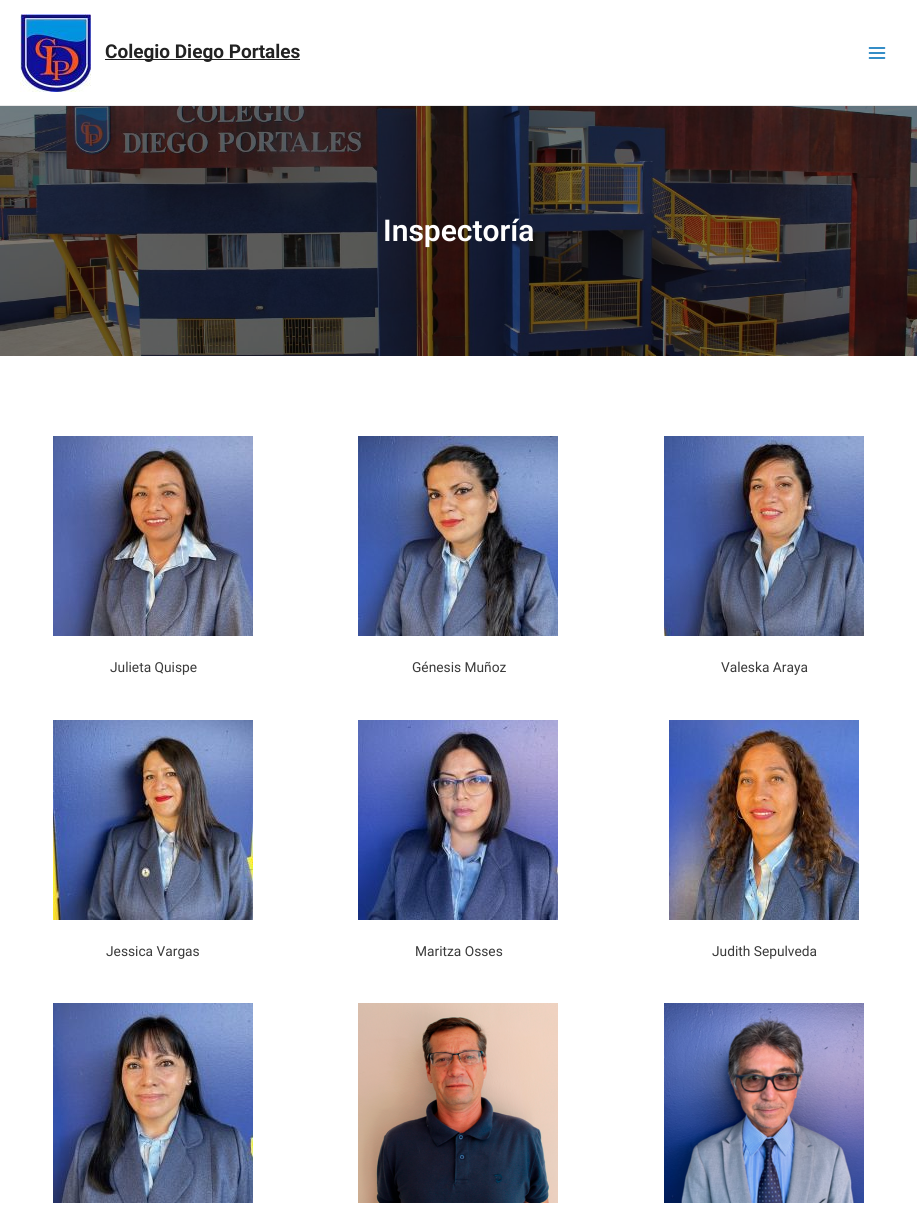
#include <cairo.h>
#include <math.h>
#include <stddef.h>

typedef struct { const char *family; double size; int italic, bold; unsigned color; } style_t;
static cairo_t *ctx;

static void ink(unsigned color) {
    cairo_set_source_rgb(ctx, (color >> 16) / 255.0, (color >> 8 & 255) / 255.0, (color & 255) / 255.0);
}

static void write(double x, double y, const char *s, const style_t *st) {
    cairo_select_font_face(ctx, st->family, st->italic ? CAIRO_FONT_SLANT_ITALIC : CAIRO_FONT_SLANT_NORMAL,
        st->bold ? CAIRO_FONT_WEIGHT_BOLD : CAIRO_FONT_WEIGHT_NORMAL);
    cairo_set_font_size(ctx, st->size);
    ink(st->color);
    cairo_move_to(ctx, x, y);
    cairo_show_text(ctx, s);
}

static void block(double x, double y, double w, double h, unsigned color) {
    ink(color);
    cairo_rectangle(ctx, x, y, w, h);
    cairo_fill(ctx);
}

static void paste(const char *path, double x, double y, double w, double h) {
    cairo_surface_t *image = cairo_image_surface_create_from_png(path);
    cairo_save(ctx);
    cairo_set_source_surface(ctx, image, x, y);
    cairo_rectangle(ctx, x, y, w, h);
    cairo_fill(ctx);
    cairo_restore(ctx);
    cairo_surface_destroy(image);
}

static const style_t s1 = {"Roboto", 19, 0, 1, 0x222222};
static const style_t s2 = {"Roboto SemiBold", 30, 0, 0, 0xffffff};
static const style_t s3 = {"Roboto", 13.75, 0, 0, 0x3a3a3a};

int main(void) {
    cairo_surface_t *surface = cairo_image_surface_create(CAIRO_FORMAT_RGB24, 917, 1206);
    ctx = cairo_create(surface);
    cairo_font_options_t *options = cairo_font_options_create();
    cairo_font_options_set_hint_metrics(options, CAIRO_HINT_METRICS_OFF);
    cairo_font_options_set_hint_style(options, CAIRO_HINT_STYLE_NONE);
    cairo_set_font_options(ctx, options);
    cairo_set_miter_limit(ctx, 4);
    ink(0xffffff);
    cairo_paint(ctx);
    block(0, 105, 917, 1, 0xeaeaea);
    paste("pic1.png", 20, 14, 71, 78);
    block(105, 59, 195, 1, 0x222222);
    write(105, 58, "Colegio Diego Portales", &s1);
    paste("pic2.png", 868, 47, 18, 12);
    block(0, 106, 917, 250, 0x000000);
    paste("pic3.png", 0, 106, 917, 250);
    write(383, 241, "Inspectoría", &s2);
    paste("pic4.png", 53, 436, 200, 200);
    write(110, 672, "Julieta Quispe", &s3);
    paste("pic5.png", 358, 436, 200, 200);
    write(412, 672, "Génesis Muñoz", &s3);
    paste("pic6.png", 664, 436, 200, 200);
    write(721, 672, "Valeska Araya", &s3);
    paste("pic7.png", 53, 720, 200, 200);
    write(106, 956, "Jessica Vargas", &s3);
    paste("pic8.png", 358, 720, 200, 200);
    write(415, 956, "Maritza Osses", &s3);
    paste("pic9.png", 669, 720, 190, 200);
    write(712, 956, "Judith Sepulveda", &s3);
    paste("pic10.png", 53, 1003, 200, 200);
    paste("pic11.png", 358, 1003, 200, 200);
    paste("pic12.png", 664, 1003, 200, 200);
    cairo_surface_write_to_png(surface, "screenshot.png");
    cairo_font_options_destroy(options);
    cairo_destroy(ctx);
    cairo_surface_destroy(surface);
    return 0;
}
